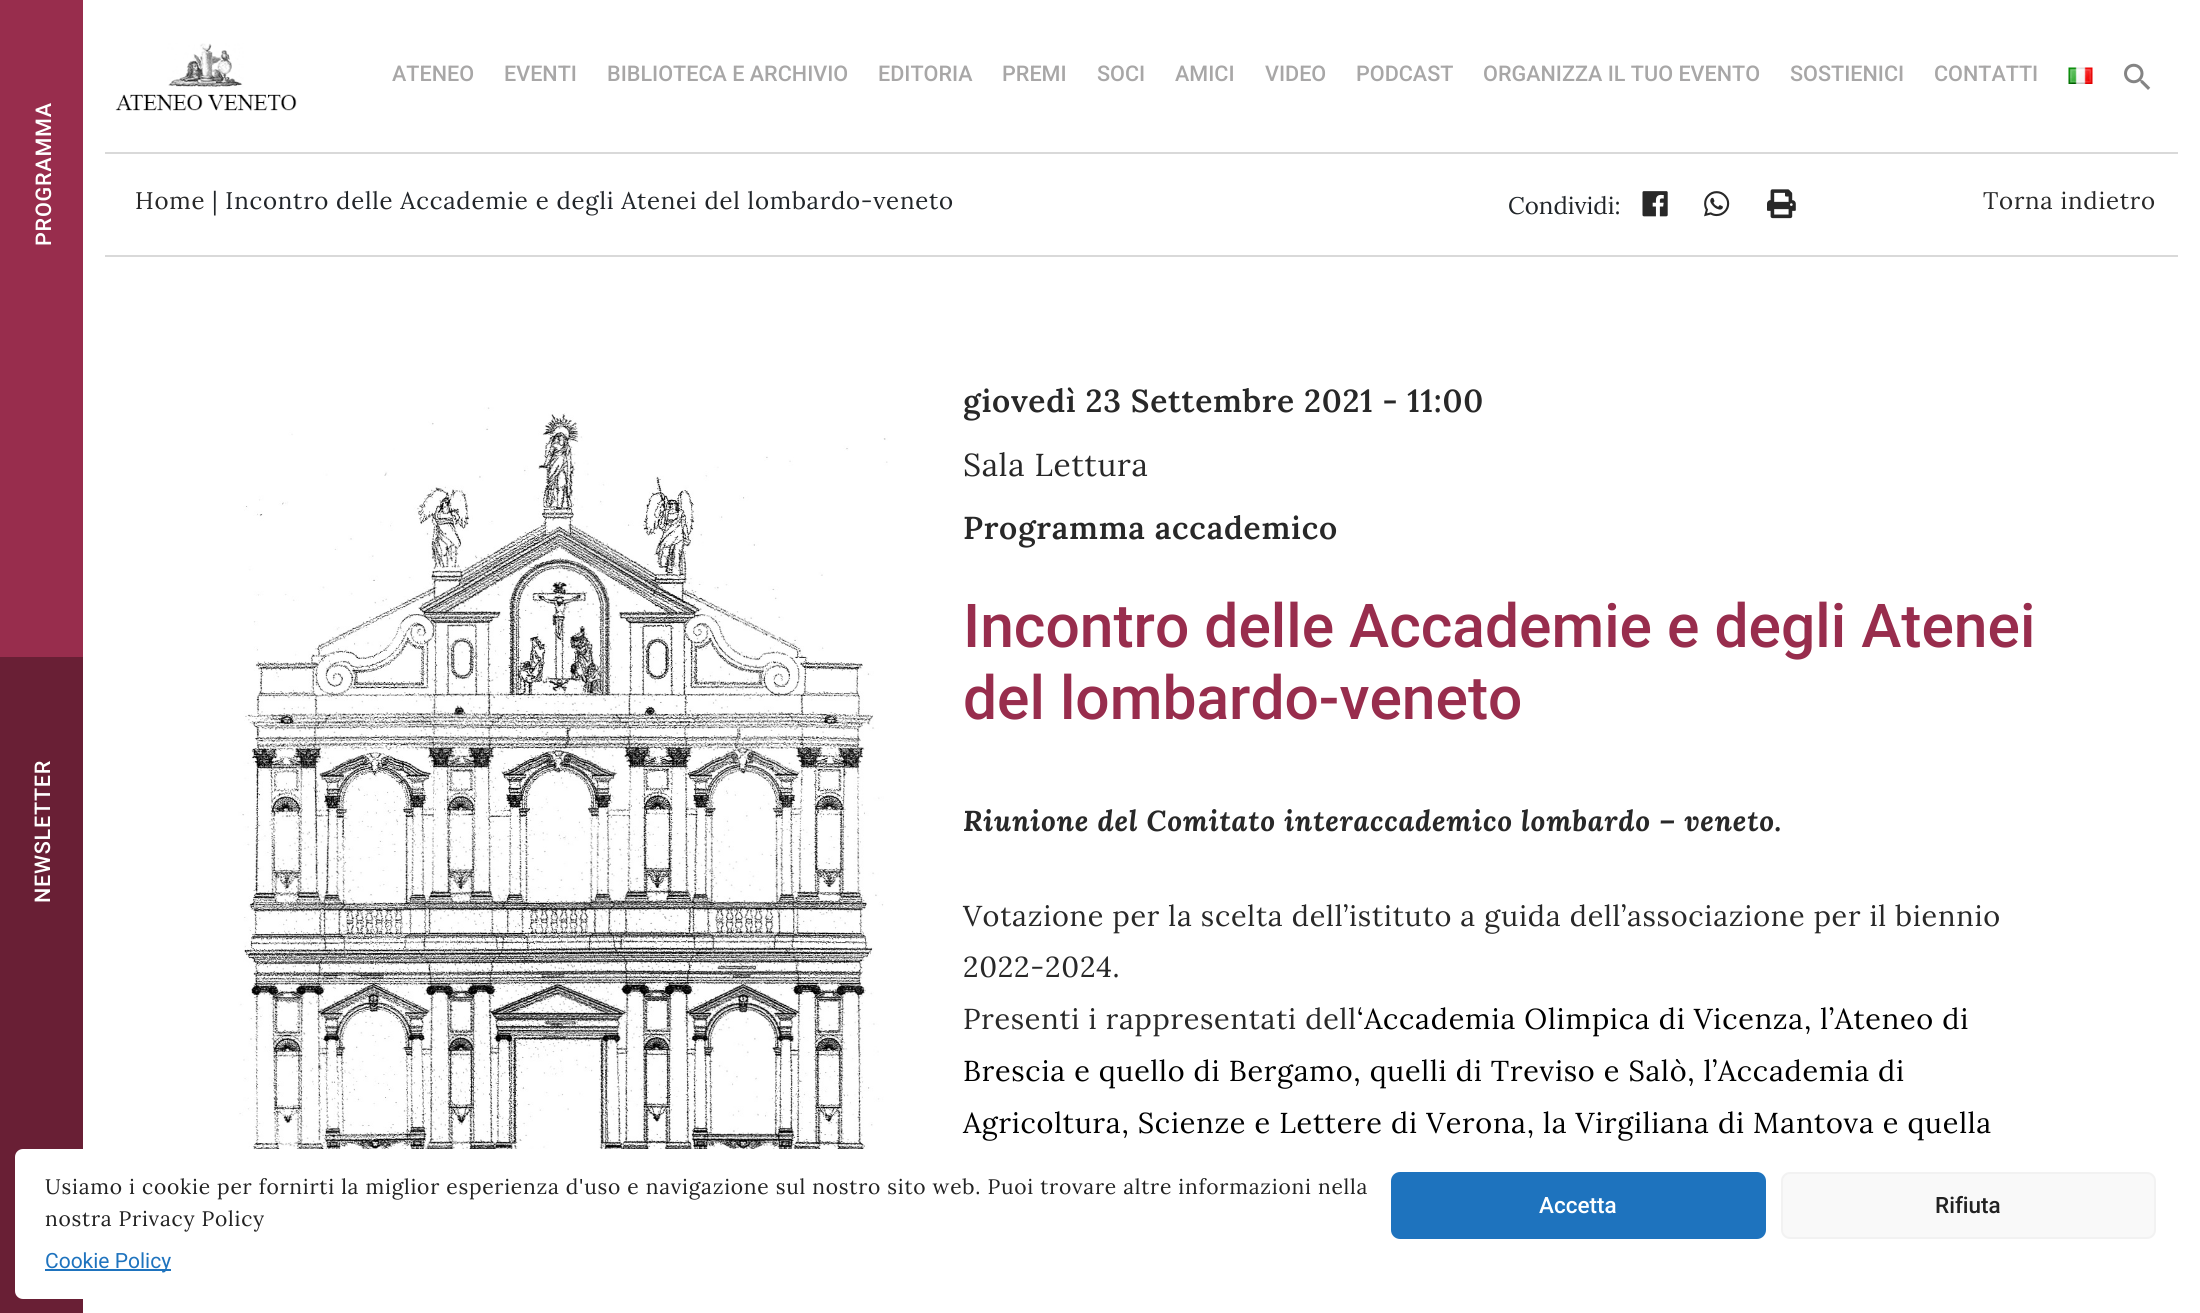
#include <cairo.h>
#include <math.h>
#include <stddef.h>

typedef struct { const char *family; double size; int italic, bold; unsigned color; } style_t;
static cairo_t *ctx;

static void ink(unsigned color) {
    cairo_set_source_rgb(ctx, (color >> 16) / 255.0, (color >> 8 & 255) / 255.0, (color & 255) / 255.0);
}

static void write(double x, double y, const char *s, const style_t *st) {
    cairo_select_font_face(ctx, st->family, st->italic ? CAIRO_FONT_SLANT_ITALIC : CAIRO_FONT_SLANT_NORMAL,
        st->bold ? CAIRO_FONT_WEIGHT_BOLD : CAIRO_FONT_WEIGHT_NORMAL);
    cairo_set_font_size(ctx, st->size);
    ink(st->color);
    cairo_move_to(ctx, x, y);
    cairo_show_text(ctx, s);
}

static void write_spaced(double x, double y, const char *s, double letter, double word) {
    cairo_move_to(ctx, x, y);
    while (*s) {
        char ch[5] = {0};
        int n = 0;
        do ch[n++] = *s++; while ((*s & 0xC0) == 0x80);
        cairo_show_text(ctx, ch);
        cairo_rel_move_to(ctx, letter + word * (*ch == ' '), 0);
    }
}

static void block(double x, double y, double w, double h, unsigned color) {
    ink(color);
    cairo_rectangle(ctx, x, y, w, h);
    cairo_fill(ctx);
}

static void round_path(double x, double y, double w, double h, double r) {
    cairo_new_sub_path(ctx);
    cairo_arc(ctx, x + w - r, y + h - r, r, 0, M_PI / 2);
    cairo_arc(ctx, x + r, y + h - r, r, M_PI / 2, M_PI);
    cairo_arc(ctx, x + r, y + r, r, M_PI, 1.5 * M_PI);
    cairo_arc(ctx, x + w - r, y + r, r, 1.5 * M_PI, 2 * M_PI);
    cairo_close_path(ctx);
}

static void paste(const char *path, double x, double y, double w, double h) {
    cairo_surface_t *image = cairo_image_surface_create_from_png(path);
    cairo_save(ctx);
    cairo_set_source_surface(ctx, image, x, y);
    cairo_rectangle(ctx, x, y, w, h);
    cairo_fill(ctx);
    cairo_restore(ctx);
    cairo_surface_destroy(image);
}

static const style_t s1 = {"Roboto Medium", 21.6, 0, 0, 0xa8a7a7};
static const style_t s2 = {"Lora", 24, 0, 0, 0x212529};
static const style_t s3 = {"Roboto Medium", 60.5, 0, 0, 0x982d4d};
static const style_t s4 = {"Roboto Medium", 22.5, 0, 0, 0xffffff};
static const style_t s5 = {"Roboto Medium", 22.5, 0, 0, 0x222222};
static const style_t s6 = {"Roboto", 21, 0, 0, 0x1e73be};

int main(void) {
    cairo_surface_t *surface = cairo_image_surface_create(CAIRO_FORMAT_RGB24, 2200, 1313);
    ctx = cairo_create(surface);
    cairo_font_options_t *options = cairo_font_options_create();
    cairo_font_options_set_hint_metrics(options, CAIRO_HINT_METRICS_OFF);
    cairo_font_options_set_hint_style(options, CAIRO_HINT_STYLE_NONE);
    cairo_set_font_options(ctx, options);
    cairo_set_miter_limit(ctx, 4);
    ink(0xffffff);
    cairo_paint(ctx);
    block(0, 0, 83, 657, 0x982d4d);
    cairo_select_font_face(ctx, "Roboto Medium", CAIRO_FONT_SLANT_NORMAL, CAIRO_FONT_WEIGHT_NORMAL);
    cairo_set_font_size(ctx, 21.6);
    ink(0xffffff);
    cairo_save(ctx);
    cairo_translate(ctx, 51, 246);
    cairo_rotate(ctx, -90 * M_PI / 180);
    write_spaced(0, 0, "PROGRAMMA", 0.75, 0);
    cairo_restore(ctx);
    block(0, 657, 83, 656, 0x691f35);
    ink(0xffffff);
    cairo_save(ctx);
    cairo_translate(ctx, 50, 903);
    cairo_rotate(ctx, -90 * M_PI / 180);
    write_spaced(0, 0, "NEWSLETTER", 0.75, 0);
    cairo_restore(ctx);
    paste("pic1.png", 115, 43, 182, 68);
    write(392, 81, "ATENEO", &s1);
    write(504, 81, "EVENTI", &s1);
    write(607, 81, "BIBLIOTECA E ARCHIVIO", &s1);
    write(878, 81, "EDITORIA", &s1);
    write(1002, 81, "PREMI", &s1);
    write(1097, 81, "SOCI", &s1);
    write(1175, 81, "AMICI", &s1);
    write(1265, 81, "VIDEO", &s1);
    write(1356, 81, "PODCAST", &s1);
    write(1483, 81, "ORGANIZZA IL TUO EVENTO", &s1);
    write(1790, 81, "SOSTIENICI", &s1);
    write(1934, 81, "CONTATTI", &s1);
    paste("pic2.png", 2068, 67, 25, 17);
    paste("pic3.png", 2124, 63, 27, 27);
    block(105, 152, 2073, 2, 0xd9d9d9);
    block(105, 255, 2073, 2, 0xd9d9d9);
    cairo_select_font_face(ctx, "Lora", CAIRO_FONT_SLANT_NORMAL, CAIRO_FONT_WEIGHT_NORMAL);
    cairo_set_font_size(ctx, 24);
    ink(0x282828);
    write_spaced(135, 209, "Home", 0.75, 0);
    ink(0x212529);
    write_spaced(212, 209, "| Incontro delle Accademie e degli Atenei del lombardo-veneto", 0.75, 0);
    write(1508, 214, "Condividi:", &s2);
    paste("pic4.png", 1642, 191, 26, 26);
    paste("pic5.png", 1704, 191, 26, 26);
    paste("pic6.png", 1767, 189, 29, 30);
    ink(0x282828);
    write_spaced(1983, 209, "Torna indietro", 0.75, 0);
    paste("pic7.png", 238, 407, 650, 742);
    cairo_select_font_face(ctx, "Lora SemiBold", CAIRO_FONT_SLANT_NORMAL, CAIRO_FONT_WEIGHT_NORMAL);
    cairo_set_font_size(ctx, 31.7);
    write_spaced(963, 412, "giovedì 23 Settembre 2021 - 11:00", 0.75, 0);
    cairo_select_font_face(ctx, "Lora", CAIRO_FONT_SLANT_NORMAL, CAIRO_FONT_WEIGHT_NORMAL);
    write_spaced(963, 476, "Sala Lettura", 0.75, 0);
    cairo_select_font_face(ctx, "Lora SemiBold", CAIRO_FONT_SLANT_NORMAL, CAIRO_FONT_WEIGHT_NORMAL);
    write_spaced(963, 539, "Programma accademico", 0.75, 0);
    write(963, 647, "Incontro delle Accademie e degli Atenei", &s3);
    write(963, 719, "del lombardo-veneto", &s3);
    cairo_select_font_face(ctx, "Lora", CAIRO_FONT_SLANT_ITALIC, CAIRO_FONT_WEIGHT_BOLD);
    cairo_set_font_size(ctx, 28.8);
    ink(0x282828);
    write_spaced(963, 831, "Riunione del Comitato interaccademico lombardo – veneto.", 0.75, 0);
    cairo_select_font_face(ctx, "Lora", CAIRO_FONT_SLANT_NORMAL, CAIRO_FONT_WEIGHT_NORMAL);
    write_spaced(963, 926, "Votazione per la scelta dell’istituto a guida dell’associazione per il biennio", 0.75, 0);
    write_spaced(963, 977, "2022-2024.", 0.75, 0);
    write_spaced(963, 1029, "Presenti i rappresentati dell", 0.75, 0);
    ink(0x000000);
    write_spaced(1357, 1029, "‘Accademia Olimpica di Vicenza, l’Ateneo di", 0.75, 0);
    write_spaced(963, 1081, "Brescia e quello di Bergamo, quelli di Treviso e Salò, l’Accademia di", 0.75, 0);
    write_spaced(963, 1133, "Agricoltura, Scienze e Lettere di Verona, la Virgiliana di Mantova e quella", 0.75, 0);
    ink(0xffffff);
    round_path(15, 1149, 2171, 150, 8);
    cairo_fill(ctx);
    cairo_set_font_size(ctx, 21);
    ink(0x222222);
    write_spaced(45, 1194, "Usiamo i cookie per fornirti la miglior esperienza d'uso e navigazione sul nostro sito web. Puoi trovare altre informazioni nella", 0.75, 0);
    write_spaced(45, 1226, "nostra Privacy Policy", 0.75, 0);
    ink(0x1e73be);
    round_path(1392, 1173, 373, 65, 8);
    cairo_fill_preserve(ctx);
    cairo_stroke(ctx);
    write(1539, 1213, "Accetta", &s4);
    ink(0xf9f9f9);
    round_path(1782, 1173, 373, 65, 8);
    cairo_fill_preserve(ctx);
    ink(0xf2f2f2);
    cairo_stroke(ctx);
    write(1935, 1213, "Rifiuta", &s5);
    block(45, 1269, 126, 2, 0x1e73be);
    write(45, 1268, "Cookie Policy", &s6);
    cairo_surface_write_to_png(surface, "screenshot.png");
    cairo_font_options_destroy(options);
    cairo_destroy(ctx);
    cairo_surface_destroy(surface);
    return 0;
}
